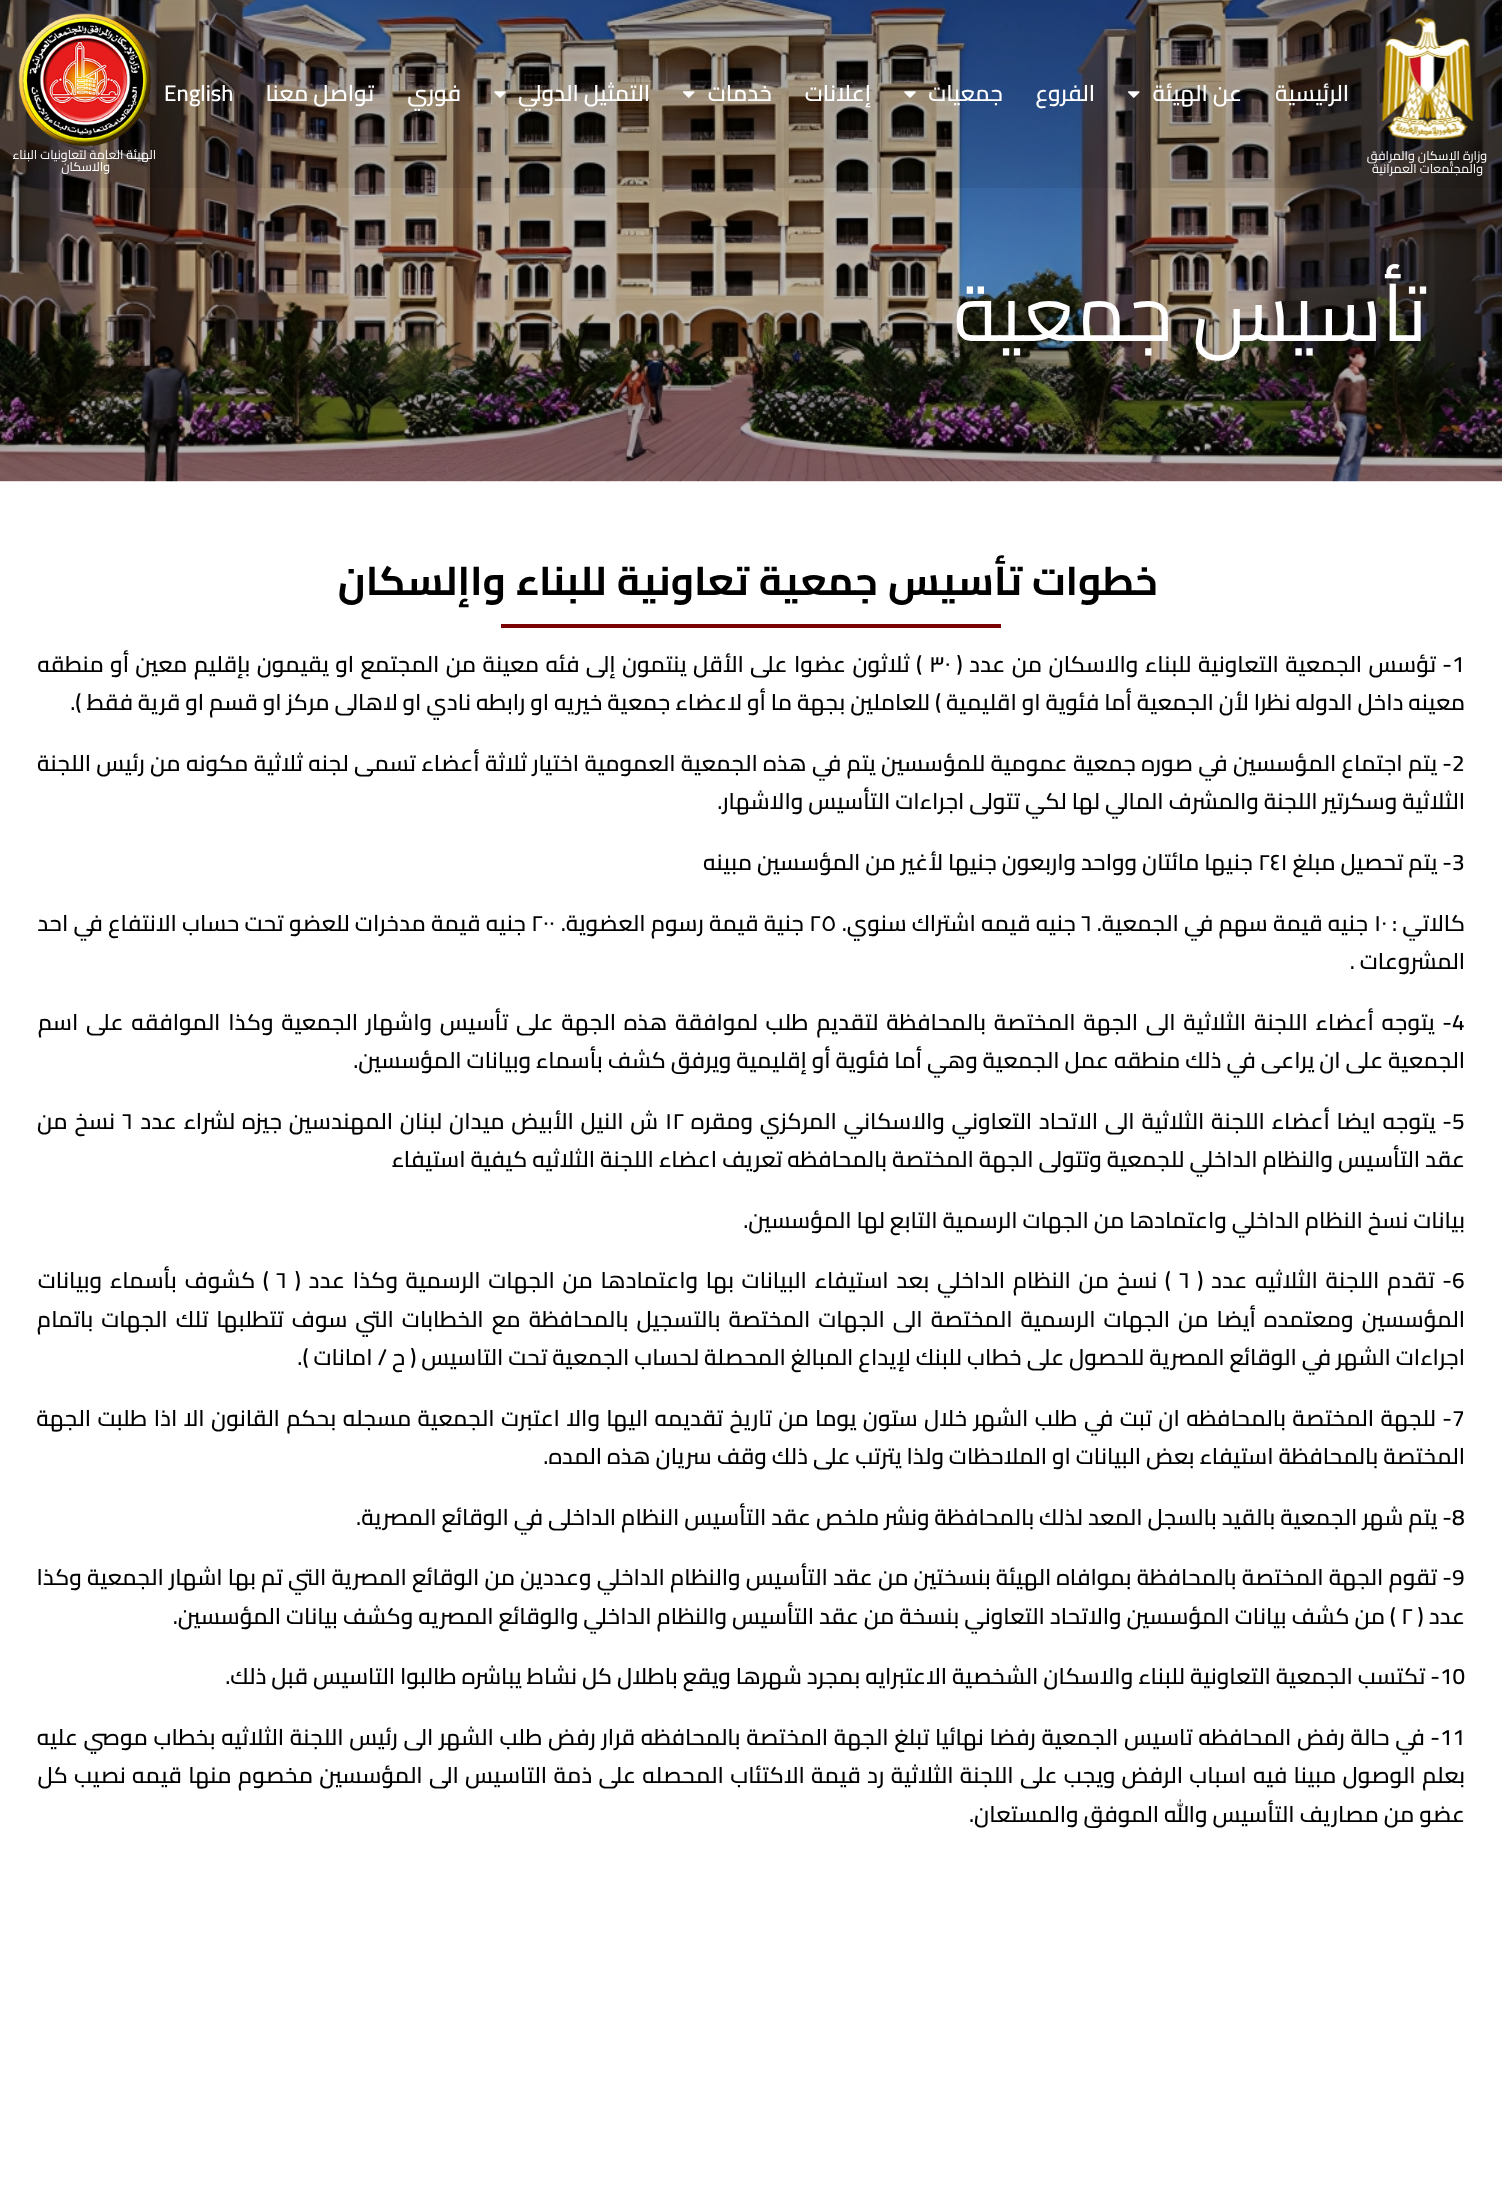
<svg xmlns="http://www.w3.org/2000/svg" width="1502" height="2190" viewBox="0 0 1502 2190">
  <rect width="100%" height="100%" fill="#fff"/>
  <image x="0" y="0" width="1502" height="482" href="img/7.png"/>
  <path d="M0 0h1502v188H0z" fill="#00000014"/>
  <image x="1128" y="91" width="12" height="7" href="img/1.png"/>
  <image x="904" y="91" width="12" height="7" href="img/2.png"/>
  <image x="683" y="91" width="12" height="7" href="img/3.png"/>
  <image x="494" y="91" width="12" height="7" href="img/4.png"/>
  <image x="1381" y="17" width="93" height="123" href="img/5.png"/>
  <image x="18" y="13" width="134" height="134" href="img/6.png"/>
  <path d="M501 624h500v4H501z" fill="#790403"/>
  <g font-family="Cairo" font-size="22.5" font-weight="600" direction="rtl" fill="#fff">
    <text x="1349" y="101">الرئيسية</text>
    <text x="1242" y="101">عن الهيئة</text>
    <text x="1095" y="101">الفروع</text>
    <text x="1003" y="101">جمعيات</text>
    <text x="871" y="101">إعلانات</text>
    <text x="772" y="101">خدمات</text>
    <text x="650" y="101">التمثيل الدولي</text>
    <text x="461" y="101">فوري</text>
    <text x="374" y="101">تواصل معنا</text>
  </g>
  <text x="164" y="101" font-family="Cairo" font-size="22.5" font-weight="600" fill="#fff">English</text>
  <g font-family="Cairo" font-size="12.5" direction="rtl" fill="#fff">
    <text x="1487" y="160">وزارة الإسكان والمرافق</text>
    <text x="1483" y="173">والمجتمعات العمرانية</text>
    <text x="156" y="159">الهيئة العامة لتعاونيات البناء</text>
    <text x="110" y="171">والاسكان</text>
  </g>
  <text x="1427" y="341" font-family="Cairo" font-size="80" direction="rtl" fill="#fff">تأسيس جمعية</text>
  <text x="1158" y="595" font-family="Cairo" font-size="40" font-weight="bold" direction="rtl" fill="#000">خطوات تأسيس جمعية تعاونية للبناء واإلسكان</text>
  <text x="1452" y="672" font-family="Cairo" font-size="22.5" font-weight="600" fill="#000">1</text>
  <text x="1452" y="672" word-spacing="1.4" font-family="Cairo" font-size="22.5" font-weight="600" direction="rtl" fill="#000">- تؤسس الجمعية التعاونية للبناء والاسكان من عدد (</text>
  <text x="929" y="672" font-family="Cairo" font-size="22.5" font-weight="600" fill="#000">۳۰</text>
  <g font-family="Cairo" font-size="22.5" font-weight="600" direction="rtl" fill="#000">
    <text x="922" y="672" word-spacing="1.4">) ثلاثون عضوا على الأقل ينتمون إلى فئه معينة من المجتمع او يقيمون بإقليم معين أو منطقه</text>
    <text x="1465" y="710">معينه داخل الدوله نظرا لأن الجمعية أما فئوية او اقليمية ) للعاملين بجهة ما أو لاعضاء جمعية خيريه او رابطه نادي او لاهالى مرکز او قسم او قرية فقط ).</text>
  </g>
  <text x="1452" y="771" font-family="Cairo" font-size="22.5" font-weight="600" fill="#000">2</text>
  <g font-family="Cairo" font-size="22.5" font-weight="600" direction="rtl" fill="#000">
    <text x="1452" y="771" word-spacing="0.4">- يتم اجتماع المؤسسين في صوره جمعية عمومية للمؤسسين يتم في هذه الجمعية العمومية اختيار ثلاثة أعضاء تسمى لجنه ثلاثية مكونه من رئيس اللجنة</text>
    <text x="1465" y="809">الثلاثية وسكرتير اللجنة والمشرف المالي لها لكي تتولى اجراءات التأسيس والاشهار.</text>
  </g>
  <text x="1452" y="870" font-family="Cairo" font-size="22.5" font-weight="600" fill="#000">3</text>
  <text x="1452" y="870" font-family="Cairo" font-size="22.5" font-weight="600" direction="rtl" fill="#000">- يتم تحصيل مبلغ</text>
  <text x="1258" y="870" font-family="Cairo" font-size="22.5" font-weight="600" fill="#000">٢٤١</text>
  <g font-family="Cairo" font-size="22.5" font-weight="600" direction="rtl" fill="#000">
    <text x="1253" y="870">جنيها مائتان وواحد واربعون جنيها لأغير من المؤسسين مبينه</text>
    <text x="1465" y="931" word-spacing="0.25">كالاتي :</text>
  </g>
  <text x="1374" y="931" font-family="Cairo" font-size="22.5" font-weight="600" fill="#000">۱۰</text>
  <text x="1368" y="931" word-spacing="0.25" font-family="Cairo" font-size="22.5" font-weight="600" direction="rtl" fill="#000">جنيه قيمة سهم في الجمعية.</text>
  <text x="1081" y="931" font-family="Cairo" font-size="22.5" font-weight="600" fill="#000">٦</text>
  <text x="1076" y="931" word-spacing="0.25" font-family="Cairo" font-size="22.5" font-weight="600" direction="rtl" fill="#000">جنيه قيمه اشتراك سنوي.</text>
  <text x="809" y="931" font-family="Cairo" font-size="22.5" font-weight="600" fill="#000">٢٥</text>
  <text x="804" y="931" word-spacing="0.25" font-family="Cairo" font-size="22.5" font-weight="600" direction="rtl" fill="#000">جنية قيمة رسوم العضوية.</text>
  <text x="531" y="931" font-family="Cairo" font-size="22.5" font-weight="600" fill="#000">۲۰۰</text>
  <g font-family="Cairo" font-size="22.5" font-weight="600" direction="rtl" fill="#000">
    <text x="526" y="931" word-spacing="0.25">جنيه قيمة مدخرات للعضو تحت حساب الانتفاع في احد</text>
    <text x="1465" y="969">المشروعات .</text>
  </g>
  <text x="1452" y="1030" font-family="Cairo" font-size="22.5" font-weight="600" fill="#000">4</text>
  <g font-family="Cairo" font-size="22.5" font-weight="600" direction="rtl" fill="#000">
    <text x="1452" y="1030" word-spacing="2.8">- يتوجه أعضاء اللجنة الثلاثية الى الجهة المختصة بالمحافظة لتقديم طلب لموافقة هذه الجهة على تأسيس واشهار الجمعية وكذا الموافقه على اسم</text>
    <text x="1465" y="1068">الجمعية على ان يراعى في ذلك منطقه عمل الجمعية وهي أما فئوية أو إقليمية ويرفق كشف بأسماء وبيانات المؤسسين.</text>
  </g>
  <text x="1452" y="1129" font-family="Cairo" font-size="22.5" font-weight="600" fill="#000">5</text>
  <text x="1452" y="1129" word-spacing="1.8" font-family="Cairo" font-size="22.5" font-weight="600" direction="rtl" fill="#000">- يتوجه ايضا أعضاء اللجنة الثلاثية الى الاتحاد التعاوني والاسكاني المركزي ومقره</text>
  <text x="665" y="1129" font-family="Cairo" font-size="22.5" font-weight="600" fill="#000">۱۲</text>
  <text x="658" y="1129" word-spacing="1.8" font-family="Cairo" font-size="22.5" font-weight="600" direction="rtl" fill="#000">ش النيل الأبيض ميدان لبنان المهندسين جيزه لشراء عدد</text>
  <text x="122" y="1129" font-family="Cairo" font-size="22.5" font-weight="600" fill="#000">٦</text>
  <g font-family="Cairo" font-size="22.5" font-weight="600" direction="rtl" fill="#000">
    <text x="115" y="1129" word-spacing="2">نسخ من</text>
    <text x="1465" y="1167">عقد التأسيس والنظام الداخلي للجمعية وتتولى الجهة المختصة بالمحافظه تعريف اعضاء اللجنة الثلاثيه كيفية استيفاء</text>
    <text x="1465" y="1228">بيانات نسخ النظام الداخلي واعتمادها من الجهات الرسمية التابع لها المؤسسين.</text>
  </g>
  <text x="1452" y="1288" font-family="Cairo" font-size="22.5" font-weight="600" fill="#000">6</text>
  <text x="1452" y="1288" word-spacing="2.75" font-family="Cairo" font-size="22.5" font-weight="600" direction="rtl" fill="#000">- تقدم اللجنة الثلاثيه عدد (</text>
  <text x="1179" y="1288" font-family="Cairo" font-size="22.5" font-weight="600" fill="#000">٦</text>
  <text x="1171" y="1288" word-spacing="2.75" font-family="Cairo" font-size="22.5" font-weight="600" direction="rtl" fill="#000">) نسخ من النظام الداخلي بعد استيفاء البيانات بها واعتمادها من الجهات الرسمية وكذا عدد (</text>
  <text x="276" y="1288" font-family="Cairo" font-size="22.5" font-weight="600" fill="#000">٦</text>
  <g font-family="Cairo" font-size="22.5" font-weight="600" direction="rtl" fill="#000">
    <text x="269" y="1288" word-spacing="2.75">) كشوف بأسماء وبيانات</text>
    <text x="1465" y="1327" word-spacing="3.1">المؤسسين ومعتمده أيضا من الجهات الرسمية المختصة الى الجهات المختصة بالتسجيل بالمحافظة مع الخطابات التي سوف تتطلبها تلك الجهات باتمام</text>
    <text x="1465" y="1365">اجراءات الشهر في الوقائع المصرية للحصول على خطاب للبنك لإيداع المبالغ المحصلة لحساب الجمعية تحت التاسيس ( ح / امانات ).</text>
  </g>
  <text x="1452" y="1426" font-family="Cairo" font-size="22.5" font-weight="600" fill="#000">7</text>
  <g font-family="Cairo" font-size="22.5" font-weight="600" direction="rtl" fill="#000">
    <text x="1452" y="1426" word-spacing="1.4">- للجهة المختصة بالمحافظه ان تبت في طلب الشهر خلال ستون يوما من تاريخ تقديمه اليها والا اعتبرت الجمعية مسجله بحكم القانون الا اذا طلبت الجهة</text>
    <text x="1465" y="1464">المختصة بالمحافظة استيفاء بعض البيانات او الملاحظات ولذا يترتب على ذلك وقف سريان هذه المده.</text>
  </g>
  <text x="1452" y="1525" font-family="Cairo" font-size="22.5" font-weight="600" fill="#000">8</text>
  <text x="1452" y="1525" font-family="Cairo" font-size="22.5" font-weight="600" direction="rtl" fill="#000">- يتم شهر الجمعية بالقيد بالسجل المعد لذلك بالمحافظة ونشر ملخص عقد التأسيس النظام الداخلى في الوقائع المصرية.</text>
  <text x="1452" y="1585" font-family="Cairo" font-size="22.5" font-weight="600" fill="#000">9</text>
  <g font-family="Cairo" font-size="22.5" font-weight="600" direction="rtl" fill="#000">
    <text x="1452" y="1585" word-spacing="0.2">- تقوم الجهة المختصة بالمحافظة بموافاه الهيئة بنسختين من عقد التأسيس والنظام الداخلي وعددين من الوقائع المصرية التي تم بها اشهار الجمعية وكذا</text>
    <text x="1465" y="1624">عدد (</text>
  </g>
  <text x="1401" y="1624" font-family="Cairo" font-size="22.5" font-weight="600" fill="#000">٢</text>
  <text x="1396" y="1624" font-family="Cairo" font-size="22.5" font-weight="600" direction="rtl" fill="#000">) من كشف بيانات المؤسسين والاتحاد التعاوني بنسخة من عقد التأسيس والنظام الداخلي والوقائع المصريه وكشف بيانات المؤسسين.</text>
  <text x="1440" y="1684" font-family="Cairo" font-size="22.5" font-weight="600" fill="#000">10</text>
  <text x="1440" y="1684" font-family="Cairo" font-size="22.5" font-weight="600" direction="rtl" fill="#000">- تكتسب الجمعية التعاونية للبناء والاسكان الشخصية الاعتبرايه بمجرد شهرها ويقع باطلال كل نشاط يباشره طالبوا التاسيس قبل ذلك.</text>
  <text x="1440" y="1745" font-family="Cairo" font-size="22.5" font-weight="600" fill="#000">11</text>
  <g font-family="Cairo" font-size="22.5" font-weight="600" direction="rtl" fill="#000">
    <text x="1440" y="1745" word-spacing="0.75">- في حالة رفض المحافظه تاسيس الجمعية رفضا نهائيا تبلغ الجهة المختصة بالمحافظه قرار رفض طلب الشهر الى رئيس اللجنة الثلاثيه بخطاب موصي عليه</text>
    <text x="1465" y="1783" word-spacing="1.35">بعلم الوصول مبينا فيه اسباب الرفض ويجب على اللجنة الثلاثية رد قيمة الاكتئاب المحصله على ذمة التاسيس الى المؤسسين مخصوم منها قيمه نصيب كل</text>
    <text x="1465" y="1822">عضو من مصاريف التأسيس والله الموفق والمستعان.</text>
  </g>
</svg>
